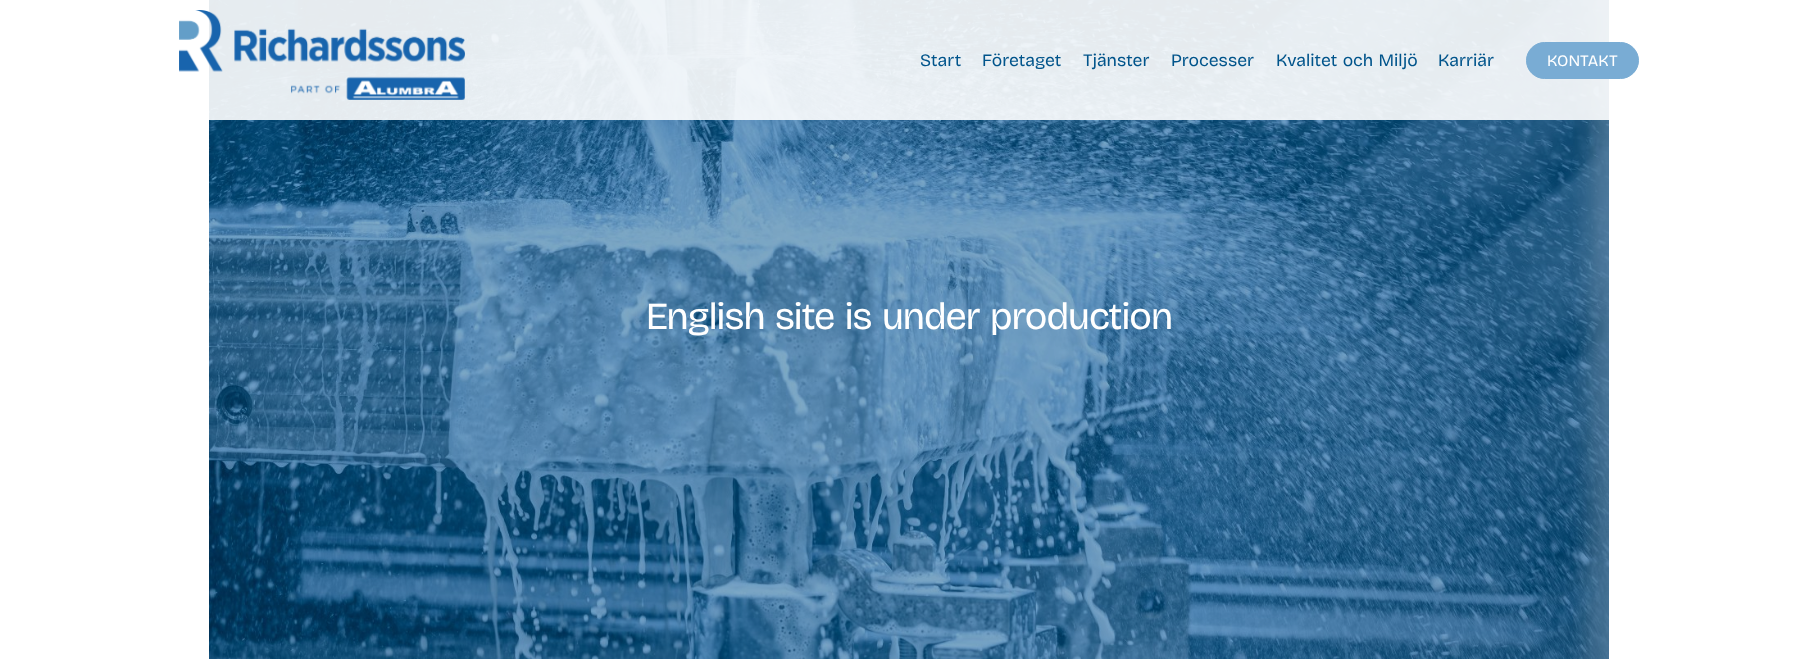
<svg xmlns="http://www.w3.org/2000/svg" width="1817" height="659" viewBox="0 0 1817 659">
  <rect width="100%" height="100%" fill="#fff"/>
  <image x="209" y="0" width="1400" height="659" href="img/2.png"/>
  <path d="M209 0h1400v120H209z" fill="#ffffffe6"/>
  <image x="179" y="10" width="286" height="90" href="img/1.png"/>
  <rect x="1526.5" y="42.5" width="112" height="36" rx="18" fill="#79acd4" stroke="#79acd4"/>
  <g font-family="'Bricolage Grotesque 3'" font-size="17.5" fill="#00548b">
    <text x="920" y="66">Start</text>
    <text x="982" y="66">Företaget</text>
    <text x="1083" y="66">Tjänster</text>
    <text x="1171" y="66">Processer</text>
    <text x="1276" y="66" word-spacing="1">Kvalitet och Miljö</text>
    <text x="1438" y="66">Karriär</text>
  </g>
  <text x="1547" y="66" font-family="'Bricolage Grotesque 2'" font-size="16" fill="#fff">KONTAKT</text>
  <text x="646" y="329" word-spacing="2" font-family="Bricolage Grotesque" font-size="38.4" letter-spacing="-0.95" fill="#fff">English site is under production</text>
</svg>
